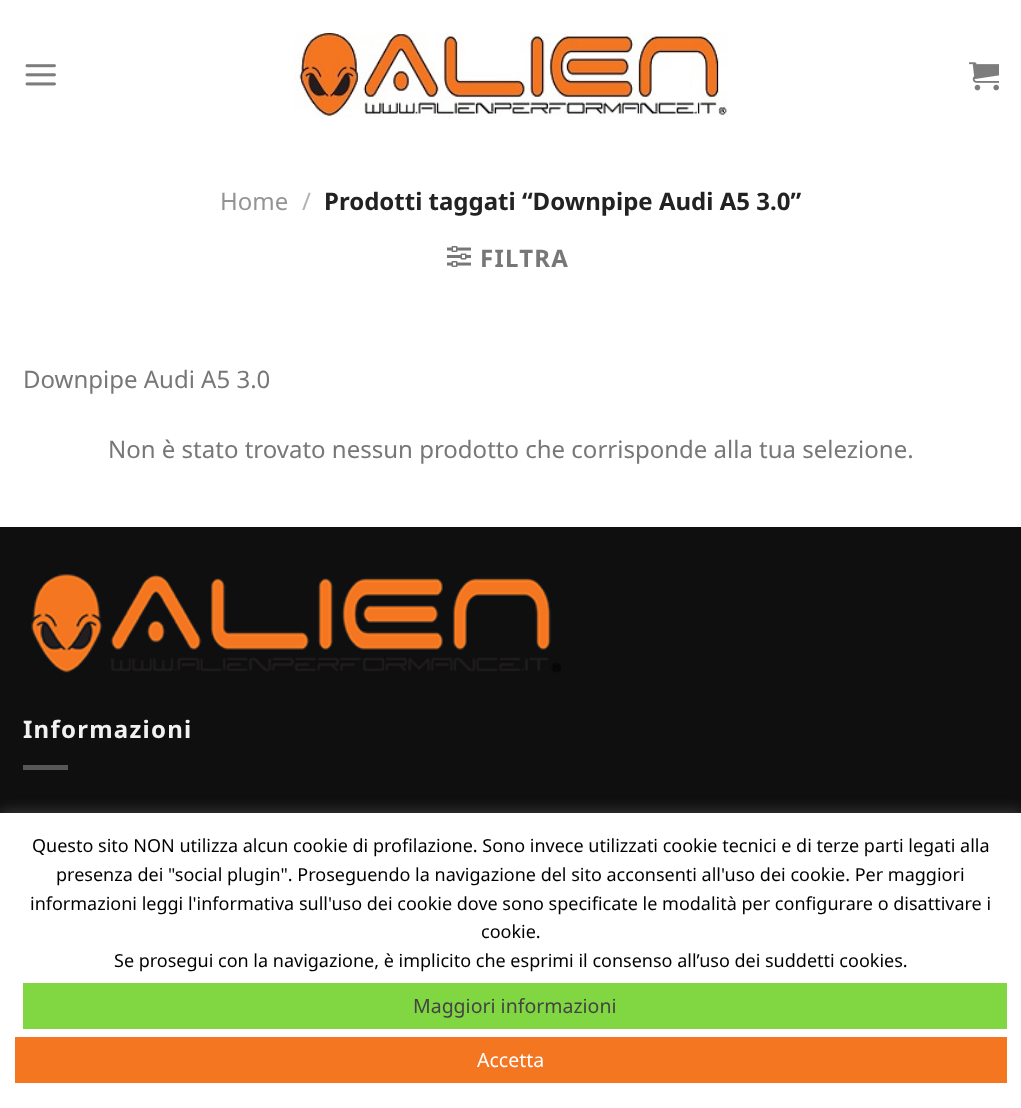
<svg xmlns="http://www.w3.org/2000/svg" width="1021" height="1108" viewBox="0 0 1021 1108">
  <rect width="100%" height="100%" fill="#fff"/>
  <image x="25" y="64" width="31" height="22" href="img/1.png"/>
  <image x="294" y="33" width="434" height="84" href="img/2.png"/>
  <image x="969" y="62" width="30" height="29" href="img/3.png"/>
  <image x="447" y="246" width="24" height="21" href="img/4.png"/>
  <path d="M0 527h1021v286H0z" fill="#0f0f0f"/>
  <image x="30" y="573" width="531" height="101" href="img/5.png"/>
  <path d="M23 765h45v5H23z" fill="#575757"/>
  <path d="M0 812h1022v295H0z" fill="#acabab4d" filter="blur(7.5px)"/>
  <path d="M0 813h1021v295H0z" fill="#fff"/>
  <path d="M23 983h984v46H23z" fill="#81d742"/>
  <path d="M15 1037h992v46H15z" fill="#f47620"/>
  <text x="220" y="210" font-family="Noto Sans" font-size="24" fill="#949494">Home</text>
  <text x="302" y="210" font-family="Noto Sans" font-size="24" fill="#b2b2b2">/</text>
  <text x="324" y="210" font-family="Noto Sans" font-size="24" font-weight="bold" fill="#222">Prodotti taggati “Downpipe Audi A5 3.0”</text>
  <text x="480" y="267" font-family="Noto Sans" font-size="24" font-weight="bold" letter-spacing="1.25" fill="#777">FILTRA</text>
  <g font-family="Noto Sans" font-size="24" fill="#777">
    <text x="23" y="388">Downpipe Audi A5 3.0</text>
    <text x="108" y="458">Non è stato trovato nessun prodotto che corrisponde alla tua selezione.</text>
  </g>
  <text x="23" y="738" font-family="Noto Sans" font-size="24" font-weight="bold" letter-spacing="1.25" fill="#f1f1f1">Informazioni</text>
  <g font-family="Noto Sans" font-size="18" fill="#000">
    <text x="32" y="852">Questo sito NON utilizza alcun cookie di profilazione. Sono invece utilizzati cookie tecnici e di terze parti legati alla</text>
    <text x="56" y="881">presenza dei "social plugin". Proseguendo la navigazione del sito acconsenti all'uso dei cookie. Per maggiori</text>
    <text x="30" y="910">informazioni leggi l'informativa sull'uso dei cookie dove sono specificate le modalità per configurare o disattivare i</text>
    <text x="481" y="938">cookie.</text>
    <text x="114" y="967">Se prosegui con la navigazione, è implicito che esprimi il consenso all’uso dei suddetti cookies.</text>
  </g>
  <text x="413" y="1013" font-family="Noto Sans" font-size="19.5" fill="#444">Maggiori informazioni</text>
  <text x="477" y="1067" font-family="Noto Sans" font-size="19.5" fill="#fff">Accetta</text>
</svg>
